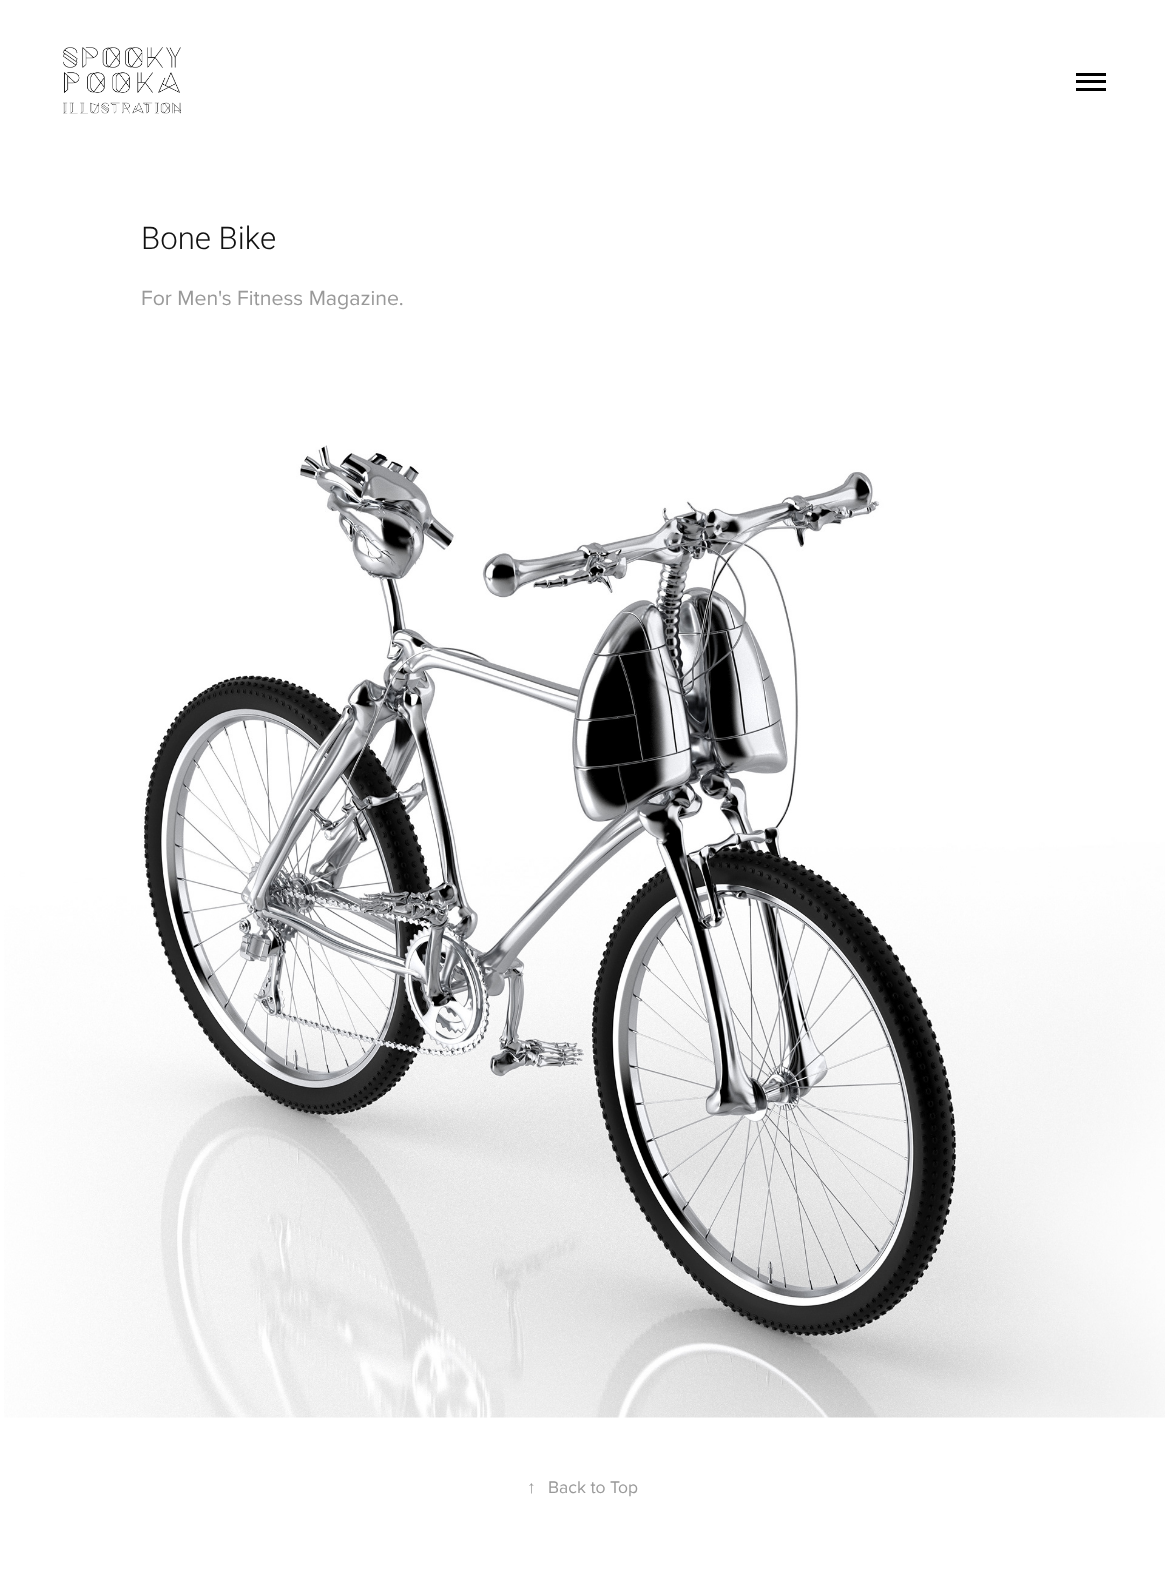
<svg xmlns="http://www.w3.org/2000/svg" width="1165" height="1579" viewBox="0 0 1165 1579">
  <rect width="100%" height="100%" fill="#fff"/>
  <image x="63" y="47" width="118" height="67" href="img/1.png"/>
  <path d="M1076 73h30v3H1076z" fill="#000"/>
  <path d="M1076 80h30v3H1076z" fill="#000"/>
  <path d="M1076 88h30v3H1076z" fill="#000"/>
  <image x="4" y="445" width="1161" height="973" href="img/2.png"/>
  <text x="141" y="249" font-family="Roboto" font-size="31.25" font-weight="300" fill="#111">Bone Bike</text>
  <text x="141" y="305" font-family="Proxima Nova" font-size="21.25" fill="#999">For Men's Fitness Magazine.</text>
  <text x="527" y="1493" font-family="Liberation Serif" font-size="17.5" fill="#999">↑</text>
  <text x="548" y="1493" font-family="Proxima Nova" font-size="17.5" fill="#999">Back to Top</text>
</svg>
